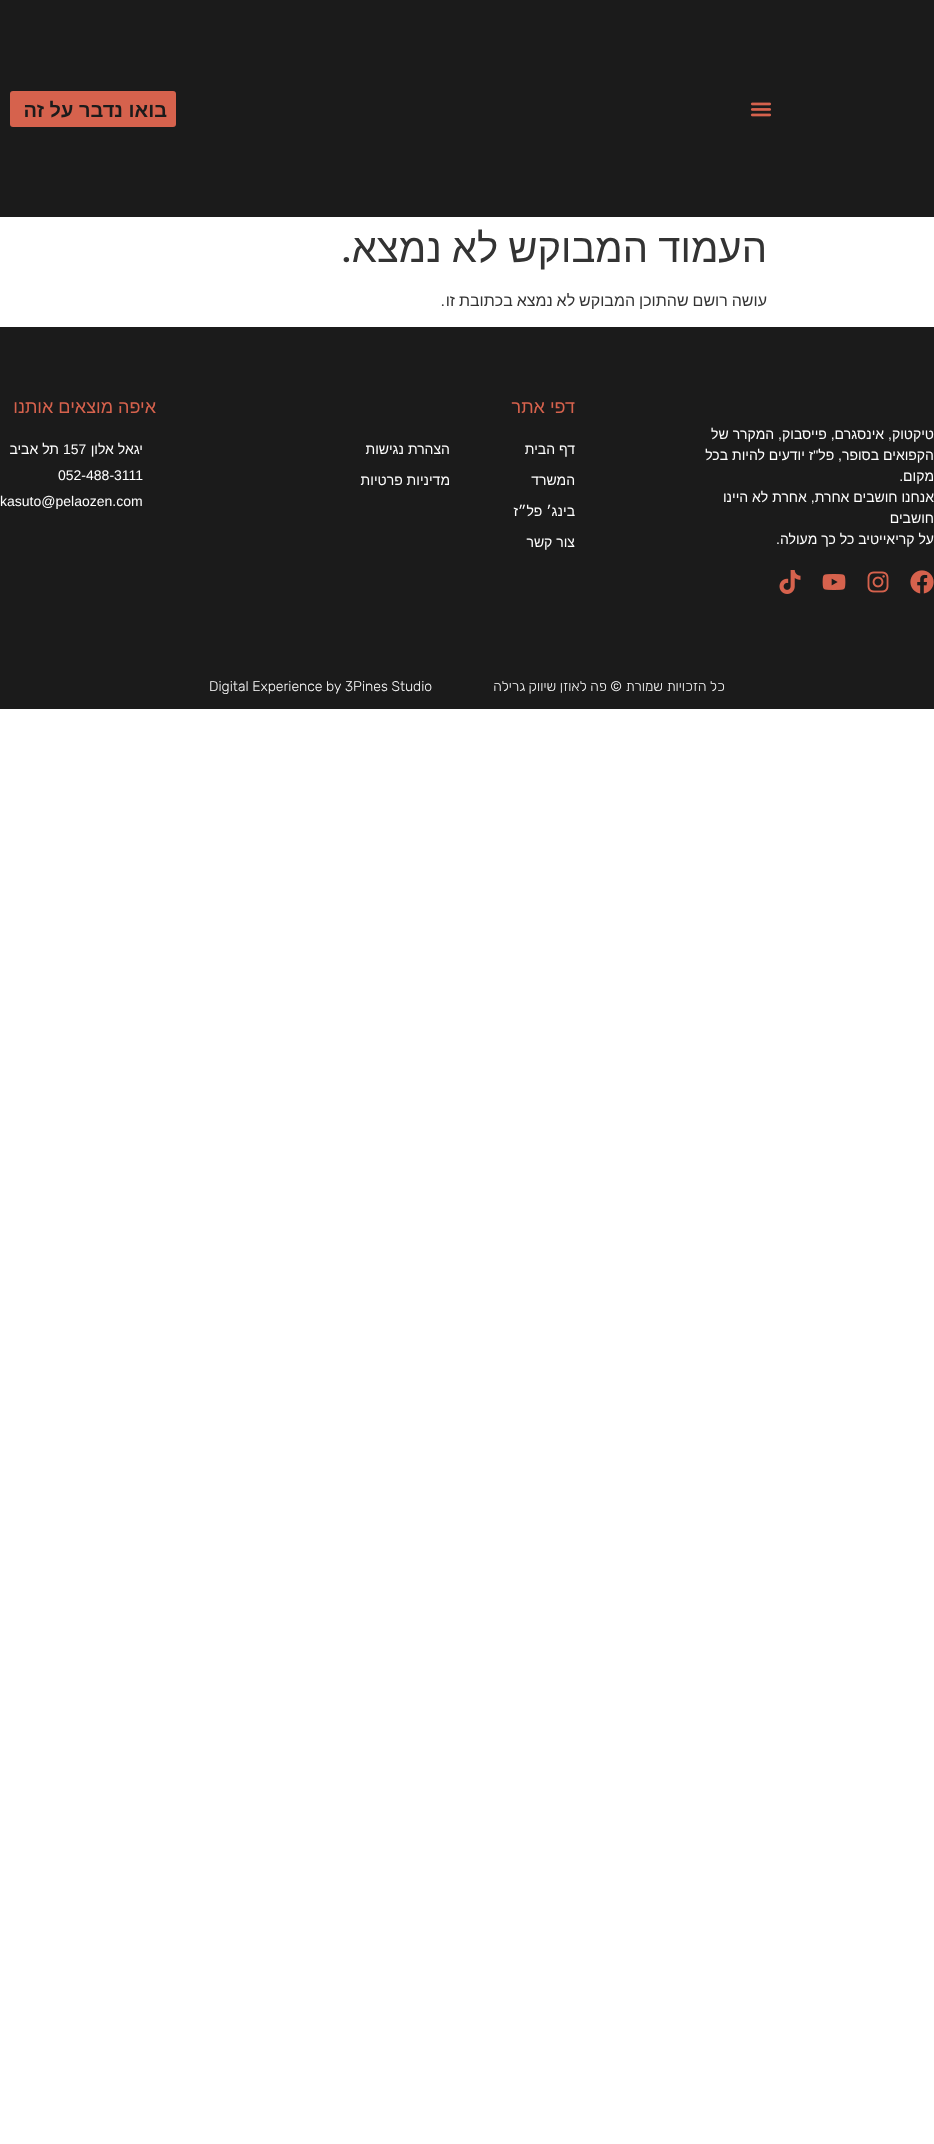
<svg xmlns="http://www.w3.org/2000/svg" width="934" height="2144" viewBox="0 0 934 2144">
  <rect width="100%" height="100%" fill="#fff"/>
  <path d="M0 0h934v217H0z" fill="#1b1b1b"/>
  <image x="750" y="102" width="22" height="15" href="img/1.png"/>
  <rect x="10" y="91" width="166" height="36" rx="3" fill="#d6624d"/>
  <path d="M0 327h934v382H0z" fill="#1b1b1b"/>
  <image x="910" y="570" width="24" height="24" href="img/2.png"/>
  <image x="867" y="571" width="22" height="22" href="img/3.png"/>
  <image x="822" y="574" width="24" height="16" href="img/4.png"/>
  <image x="779" y="570" width="22" height="24" href="img/5.png"/>
  <text x="167" y="117" font-family="Liberation Sans" font-size="20" font-weight="bold" direction="rtl" fill="#1b1b1b">בואו נדבר על זה</text>
  <text x="767" y="262" word-spacing="-1" font-family="Liberation Sans" font-size="40" direction="rtl" fill="#333">העמוד המבוקש לא נמצא</text>
  <text x="352" y="262" font-family="Roboto" font-size="40" font-weight="500" direction="rtl" fill="#333">.</text>
  <text x="767" y="306" word-spacing="-0.5" font-family="Liberation Sans" font-size="16" direction="rtl" fill="#333">עושה רושם שהתוכן המבוקש לא נמצא בכתובת זו</text>
  <text x="445" y="306" font-family="Roboto" font-size="16" direction="rtl" fill="#333">.</text>
  <g font-family="Liberation Sans" font-size="14" direction="rtl" fill="#fff">
    <text x="934" y="439">טיקטוק, אינסגרם, פייסבוק, המקרר של</text>
    <text x="934" y="460">הקפואים בסופר, פל"ז יודעים להיות בכל</text>
    <text x="934" y="481">מקום.</text>
    <text x="934" y="502">אנחנו חושבים אחרת, אחרת לא היינו</text>
    <text x="934" y="523">חושבים</text>
    <text x="934" y="544">על קריאייטיב כל כך מעולה.</text>
  </g>
  <text x="575" y="413" font-family="Liberation Sans" font-size="18" direction="rtl" fill="#d6624d">דפי אתר</text>
  <g font-family="Liberation Sans" font-size="14" direction="rtl" fill="#fff">
    <text x="575" y="454">דף הבית</text>
    <text x="575" y="485">המשרד</text>
    <text x="575" y="516">בינג׳ פל״ז</text>
    <text x="575" y="547">צור קשר</text>
    <text x="450" y="454">הצהרת נגישות</text>
    <text x="450" y="485">מדיניות פרטיות</text>
  </g>
  <text x="156" y="413" font-family="Liberation Sans" font-size="18" direction="rtl" fill="#d6624d">איפה מוצאים אותנו</text>
  <text x="143" y="454" font-family="Liberation Sans" font-size="14" direction="rtl" fill="#fff">יגאל אלון</text>
  <text x="63" y="454" font-family="Liberation Sans" font-size="14" fill="#fff">157</text>
  <text x="59" y="454" font-family="Liberation Sans" font-size="14" direction="rtl" fill="#fff">תל אביב</text>
  <g font-family="Liberation Sans" font-size="14" fill="#fff">
    <text x="58" y="480">052-488-3111</text>
    <text x="0" y="506">kasuto@pelaozen.com</text>
  </g>
  <text x="725" y="691" font-family="Rubik" font-size="14" font-weight="300" direction="rtl" fill="#fff">כל הזכויות שמורת © פה לאוזן שיווק גרילה</text>
  <text x="209" y="691" font-family="Rubik" font-size="14" font-weight="300" fill="#fff">Digital Experience by 3Pines Studio</text>
</svg>
